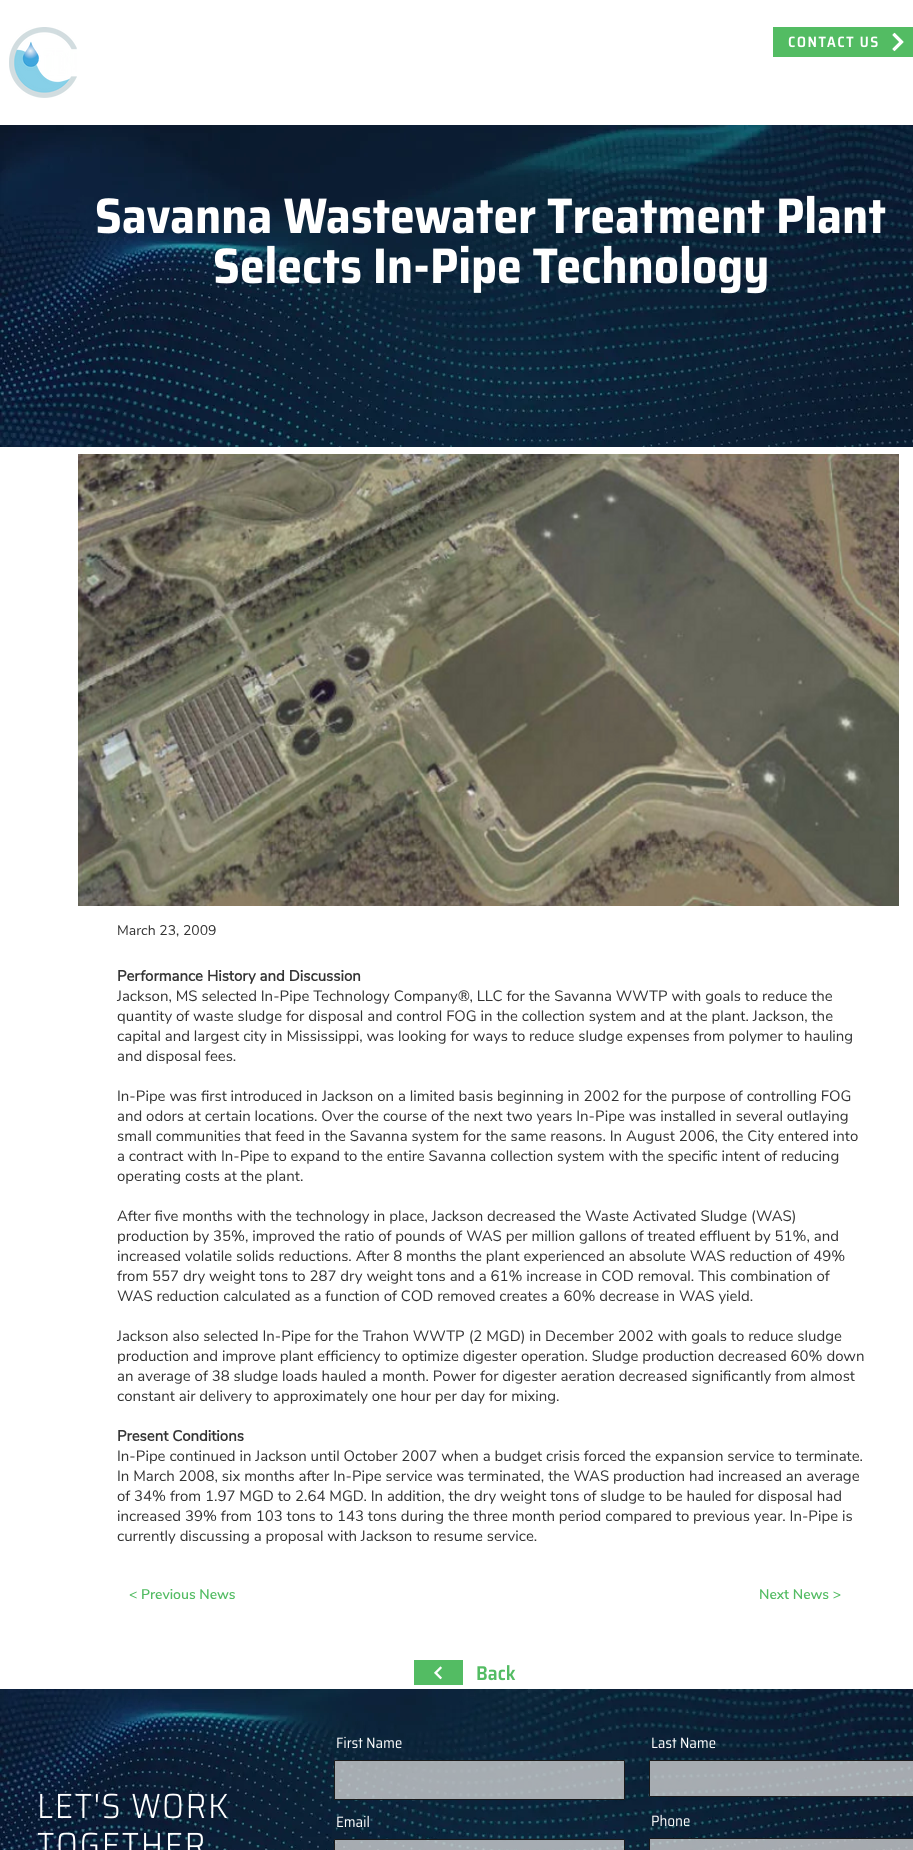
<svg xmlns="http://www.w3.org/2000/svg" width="913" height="1850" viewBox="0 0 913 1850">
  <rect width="100%" height="100%" fill="#fff"/>
  <image x="9" y="27" width="68" height="71" href="img/1.png"/>
  <path d="M773 27h140v30H773z" fill="#53bc63"/>
  <image x="788" y="36" width="90" height="12" href="img/2.png"/>
  <image x="892" y="32" width="12" height="20" href="img/3.png"/>
  <image x="0" y="125" width="913" height="322" href="img/4.png"/>
  <image x="96" y="195" width="790" height="39" href="img/5.png"/>
  <image x="214" y="245" width="553" height="49" href="img/6.png"/>
  <image x="78" y="454" width="821" height="452" href="img/7.png"/>
  <path d="M414 1660h49v25H414z" fill="#53bc63"/>
  <image x="434" y="1666" width="8" height="14" href="img/8.png"/>
  <image x="477" y="1665" width="39" height="16" href="img/9.png"/>
  <image x="0" y="1689" width="913" height="161" href="img/10.png"/>
  <image x="40" y="1793" width="188" height="26" href="img/11.png"/>
  <image x="38" y="1832" width="165" height="18" href="img/12.png"/>
  <image x="337" y="1736" width="65" height="13" href="img/13.png"/>
  <path d="M334.5 1760.5h290v39H334.5z" fill="#dbdbdbbf" stroke="#1a1a1a"/>
  <image x="652" y="1737" width="64" height="12" href="img/14.png"/>
  <path d="M649.5 1760.5h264v36H649.5z" fill="#dbdbdbbf" stroke="#1a1a1a"/>
  <image x="337" y="1815" width="32" height="13" href="img/15.png"/>
  <path d="M334.5 1839.5h290v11H334.5z" fill="#dbdbdbbf" stroke="#1a1a1a"/>
  <image x="652" y="1814" width="38" height="13" href="img/16.png"/>
  <path d="M649.5 1838.5h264v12H649.5z" fill="#dbdbdbbf" stroke="#1a1a1a"/>
  <text x="117" y="935" font-family="Nunito Sans" font-size="14" fill="#333">March 23, 2009</text>
  <text x="117" y="981" font-family="Nunito Sans" font-size="15" font-weight="bold" fill="#333">Performance History and Discussion</text>
  <g font-family="Nunito Sans" font-size="15" fill="#333">
    <text x="117" y="1001">Jackson, MS selected In-Pipe Technology Company®, LLC for the Savanna WWTP with goals to reduce the</text>
    <text x="117" y="1021">quantity of waste sludge for disposal and control FOG in the collection system and at the plant. Jackson, the</text>
    <text x="117" y="1041">capital and largest city in Mississippi, was looking for ways to reduce sludge expenses from polymer to hauling</text>
    <text x="117" y="1061">and disposal fees.</text>
    <text x="117" y="1101">In-Pipe was first introduced in Jackson on a limited basis beginning in 2002 for the purpose of controlling FOG</text>
    <text x="117" y="1121">and odors at certain locations. Over the course of the next two years In-Pipe was installed in several outlaying</text>
    <text x="117" y="1141">small communities that feed in the Savanna system for the same reasons. In August 2006, the City entered into</text>
    <text x="117" y="1161">a contract with In-Pipe to expand to the entire Savanna collection system with the specific intent of reducing</text>
    <text x="117" y="1181">operating costs at the plant.</text>
    <text x="117" y="1221">After five months with the technology in place, Jackson decreased the Waste Activated Sludge (WAS)</text>
    <text x="117" y="1241">production by 35%, improved the ratio of pounds of WAS per million gallons of treated effluent by 51%, and</text>
    <text x="117" y="1261">increased volatile solids reductions. After 8 months the plant experienced an absolute WAS reduction of 49%</text>
    <text x="117" y="1281">from 557 dry weight tons to 287 dry weight tons and a 61% increase in COD removal. This combination of</text>
    <text x="117" y="1301">WAS reduction calculated as a function of COD removed creates a 60% decrease in WAS yield.</text>
    <text x="117" y="1341">Jackson also selected In-Pipe for the Trahon WWTP (2 MGD) in December 2002 with goals to reduce sludge</text>
    <text x="117" y="1361">production and improve plant efficiency to optimize digester operation. Sludge production decreased 60% down</text>
    <text x="117" y="1381">an average of 38 sludge loads hauled a month. Power for digester aeration decreased significantly from almost</text>
    <text x="117" y="1401">constant air delivery to approximately one hour per day for mixing.</text>
  </g>
  <text x="117" y="1441" font-family="Nunito Sans" font-size="15" font-weight="bold" fill="#333">Present Conditions</text>
  <g font-family="Nunito Sans" font-size="15" fill="#333">
    <text x="117" y="1461">In-Pipe continued in Jackson until October 2007 when a budget crisis forced the expansion service to terminate.</text>
    <text x="117" y="1481">In March 2008, six months after In-Pipe service was terminated, the WAS production had increased an average</text>
    <text x="117" y="1501">of 34% from 1.97 MGD to 2.64 MGD. In addition, the dry weight tons of sludge to be hauled for disposal had</text>
    <text x="117" y="1521">increased 39% from 103 tons to 143 tons during the three month period compared to previous year. In-Pipe is</text>
    <text x="117" y="1541">currently discussing a proposal with Jackson to resume service.</text>
  </g>
  <g font-family="Nunito Sans" font-size="14" font-weight="600" fill="#53bc63">
    <text x="129" y="1599">&lt; Previous News</text>
    <text x="759" y="1599">Next News &gt;</text>
  </g>
</svg>
